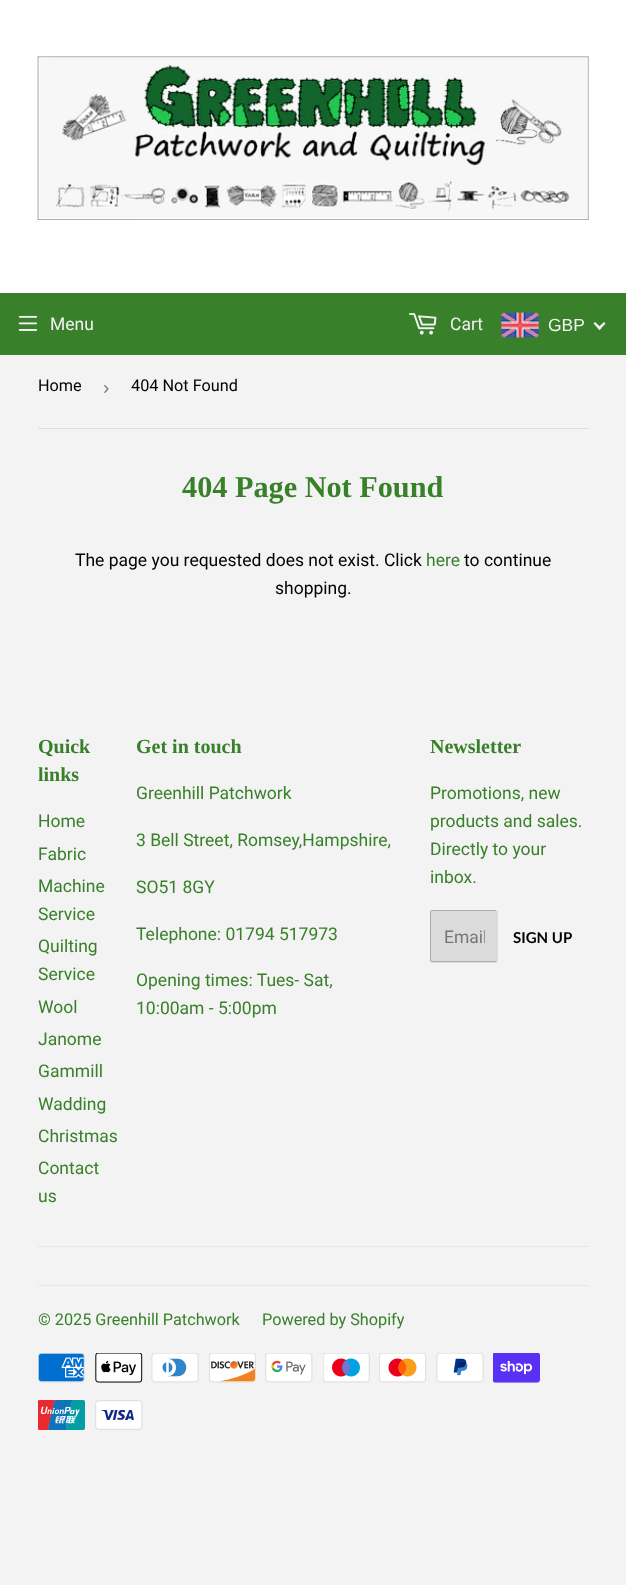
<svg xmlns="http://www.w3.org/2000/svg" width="626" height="1585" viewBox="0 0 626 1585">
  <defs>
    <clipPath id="clip1"><path d="M444 926h41v20H444z"/></clipPath>
  </defs>
  <rect width="100%" height="100%" fill="#f3f3f3"/>
  <path d="M0 0h626v293H0z" fill="#fff"/>
  <image x="37" y="56" width="552" height="164" href="img/1.png"/>
  <path d="M0 293h626v62H0z" fill="#388029"/>
  <image x="18" y="315" width="20" height="16" href="img/2.png"/>
  <image x="409" y="313" width="28" height="22" href="img/3.png"/>
  <image x="501" y="312" width="38" height="26" href="img/4.png"/>
  <path d="M604 322L605.5 323.5L599.5 330L597.5 328Z" fill="#f3f3f3"/>
  <path d="M595 322L601.5 328L599.5 330L593.5 323.5Z" fill="#f3f3f3"/>
  <path d="M38 428h551v1H38z" fill="#dedede"/>
  <rect x="430" y="910" width="68" height="53" rx="2.5" fill="#dbdbdb"/>
  <path d="M431 910h65v1H431z" fill="#ababab"/>
  <path d="M431 961h65v1H431z" fill="#ababab"/>
  <path d="M430 911h1v50H430z" fill="#ababab"/>
  <path d="M38 1246h551v1H38z" fill="#e6e6e6"/>
  <path d="M38 1285h551v1H38z" fill="#e6e6e6"/>
  <image x="38" y="1353" width="47" height="30" href="img/5.png"/>
  <image x="95" y="1353" width="48" height="30" href="img/6.png"/>
  <image x="151" y="1353" width="48" height="30" href="img/7.png"/>
  <image x="209" y="1353" width="47" height="30" href="img/8.png"/>
  <image x="265" y="1353" width="48" height="30" href="img/9.png"/>
  <image x="323" y="1353" width="47" height="30" href="img/10.png"/>
  <image x="379" y="1353" width="47" height="30" href="img/11.png"/>
  <image x="436" y="1353" width="48" height="30" href="img/12.png"/>
  <image x="493" y="1353" width="47" height="30" href="img/13.png"/>
  <image x="38" y="1400" width="47" height="30" href="img/14.png"/>
  <image x="95" y="1400" width="48" height="30" href="img/15.png"/>
  <g font-family="Roboto" font-size="17.5" fill="#f3f3f3">
    <text x="50" y="330">Menu</text>
    <text x="450" y="330">Cart</text>
  </g>
  <text x="548" y="331" font-family="Liberation Sans" font-size="17.5" fill="#f3f3f3">GBP</text>
  <text x="38" y="391" font-family="Roboto" font-size="16.25" fill="#000">Home</text>
  <text x="103" y="394" font-family="Liberation Sans" font-size="19" fill="#767676">›</text>
  <text x="131" y="391" font-family="Roboto" font-size="16.25" fill="#000">404 Not Found</text>
  <text x="182" y="497" font-family="Liberation Serif" font-size="30.25" font-weight="bold" fill="#388029">404 Page Not Found</text>
  <text x="75" y="566" font-family="Roboto" font-size="17.5" fill="#000">The page you requested does not exist. Click</text>
  <text x="426" y="566" font-family="Roboto" font-size="17.5" fill="#388029">here</text>
  <g font-family="Roboto" font-size="17.5" fill="#000">
    <text x="464" y="566">to continue</text>
    <text x="275" y="594">shopping.</text>
  </g>
  <g font-family="Liberation Serif" font-size="20" font-weight="bold" fill="#388029">
    <text x="38" y="753">Quick</text>
    <text x="38" y="781">links</text>
  </g>
  <g font-family="Roboto" font-size="17.5" fill="#388029">
    <text x="38" y="827">Home</text>
    <text x="38" y="860">Fabric</text>
    <text x="38" y="892">Machine</text>
    <text x="38" y="920">Service</text>
    <text x="38" y="952">Quilting</text>
    <text x="38" y="980">Service</text>
    <text x="38" y="1013">Wool</text>
    <text x="38" y="1045">Janome</text>
    <text x="38" y="1077">Gammill</text>
    <text x="38" y="1110">Wadding</text>
    <text x="38" y="1142">Christmas</text>
    <text x="38" y="1174">Contact</text>
    <text x="38" y="1202">us</text>
  </g>
  <text x="136" y="753" font-family="Liberation Serif" font-size="20" font-weight="bold" fill="#388029">Get in touch</text>
  <g font-family="Roboto" font-size="17.5" fill="#388029">
    <text x="136" y="799">Greenhill Patchwork</text>
    <text x="136" y="846">3 Bell Street, Romsey,Hampshire,</text>
    <text x="136" y="893">SO51 8GY</text>
    <text x="136" y="940">Telephone: 01794 517973</text>
    <text x="136" y="986">Opening times: Tues- Sat,</text>
    <text x="136" y="1014">10:00am - 5:00pm</text>
  </g>
  <text x="430" y="753" font-family="Liberation Serif" font-size="20" font-weight="bold" fill="#388029">Newsletter</text>
  <g font-family="Roboto" font-size="17.5" fill="#388029">
    <text x="430" y="799">Promotions, new</text>
    <text x="430" y="827">products and sales.</text>
    <text x="430" y="855">Directly to your</text>
    <text x="430" y="883">inbox.</text>
  </g>
  <g clip-path="url(#clip1)">
    <text x="444" y="943" font-family="Roboto" font-size="17.5" fill="#767676">Email</text>
  </g>
  <text x="513" y="943" font-family="Lato" font-size="15" font-weight="bold" fill="#000">SIGN UP</text>
  <g font-family="Roboto" font-size="16.25" fill="#388029">
    <text x="38" y="1325">© 2025 Greenhill Patchwork</text>
    <text x="262" y="1325">Powered by Shopify</text>
  </g>
</svg>
